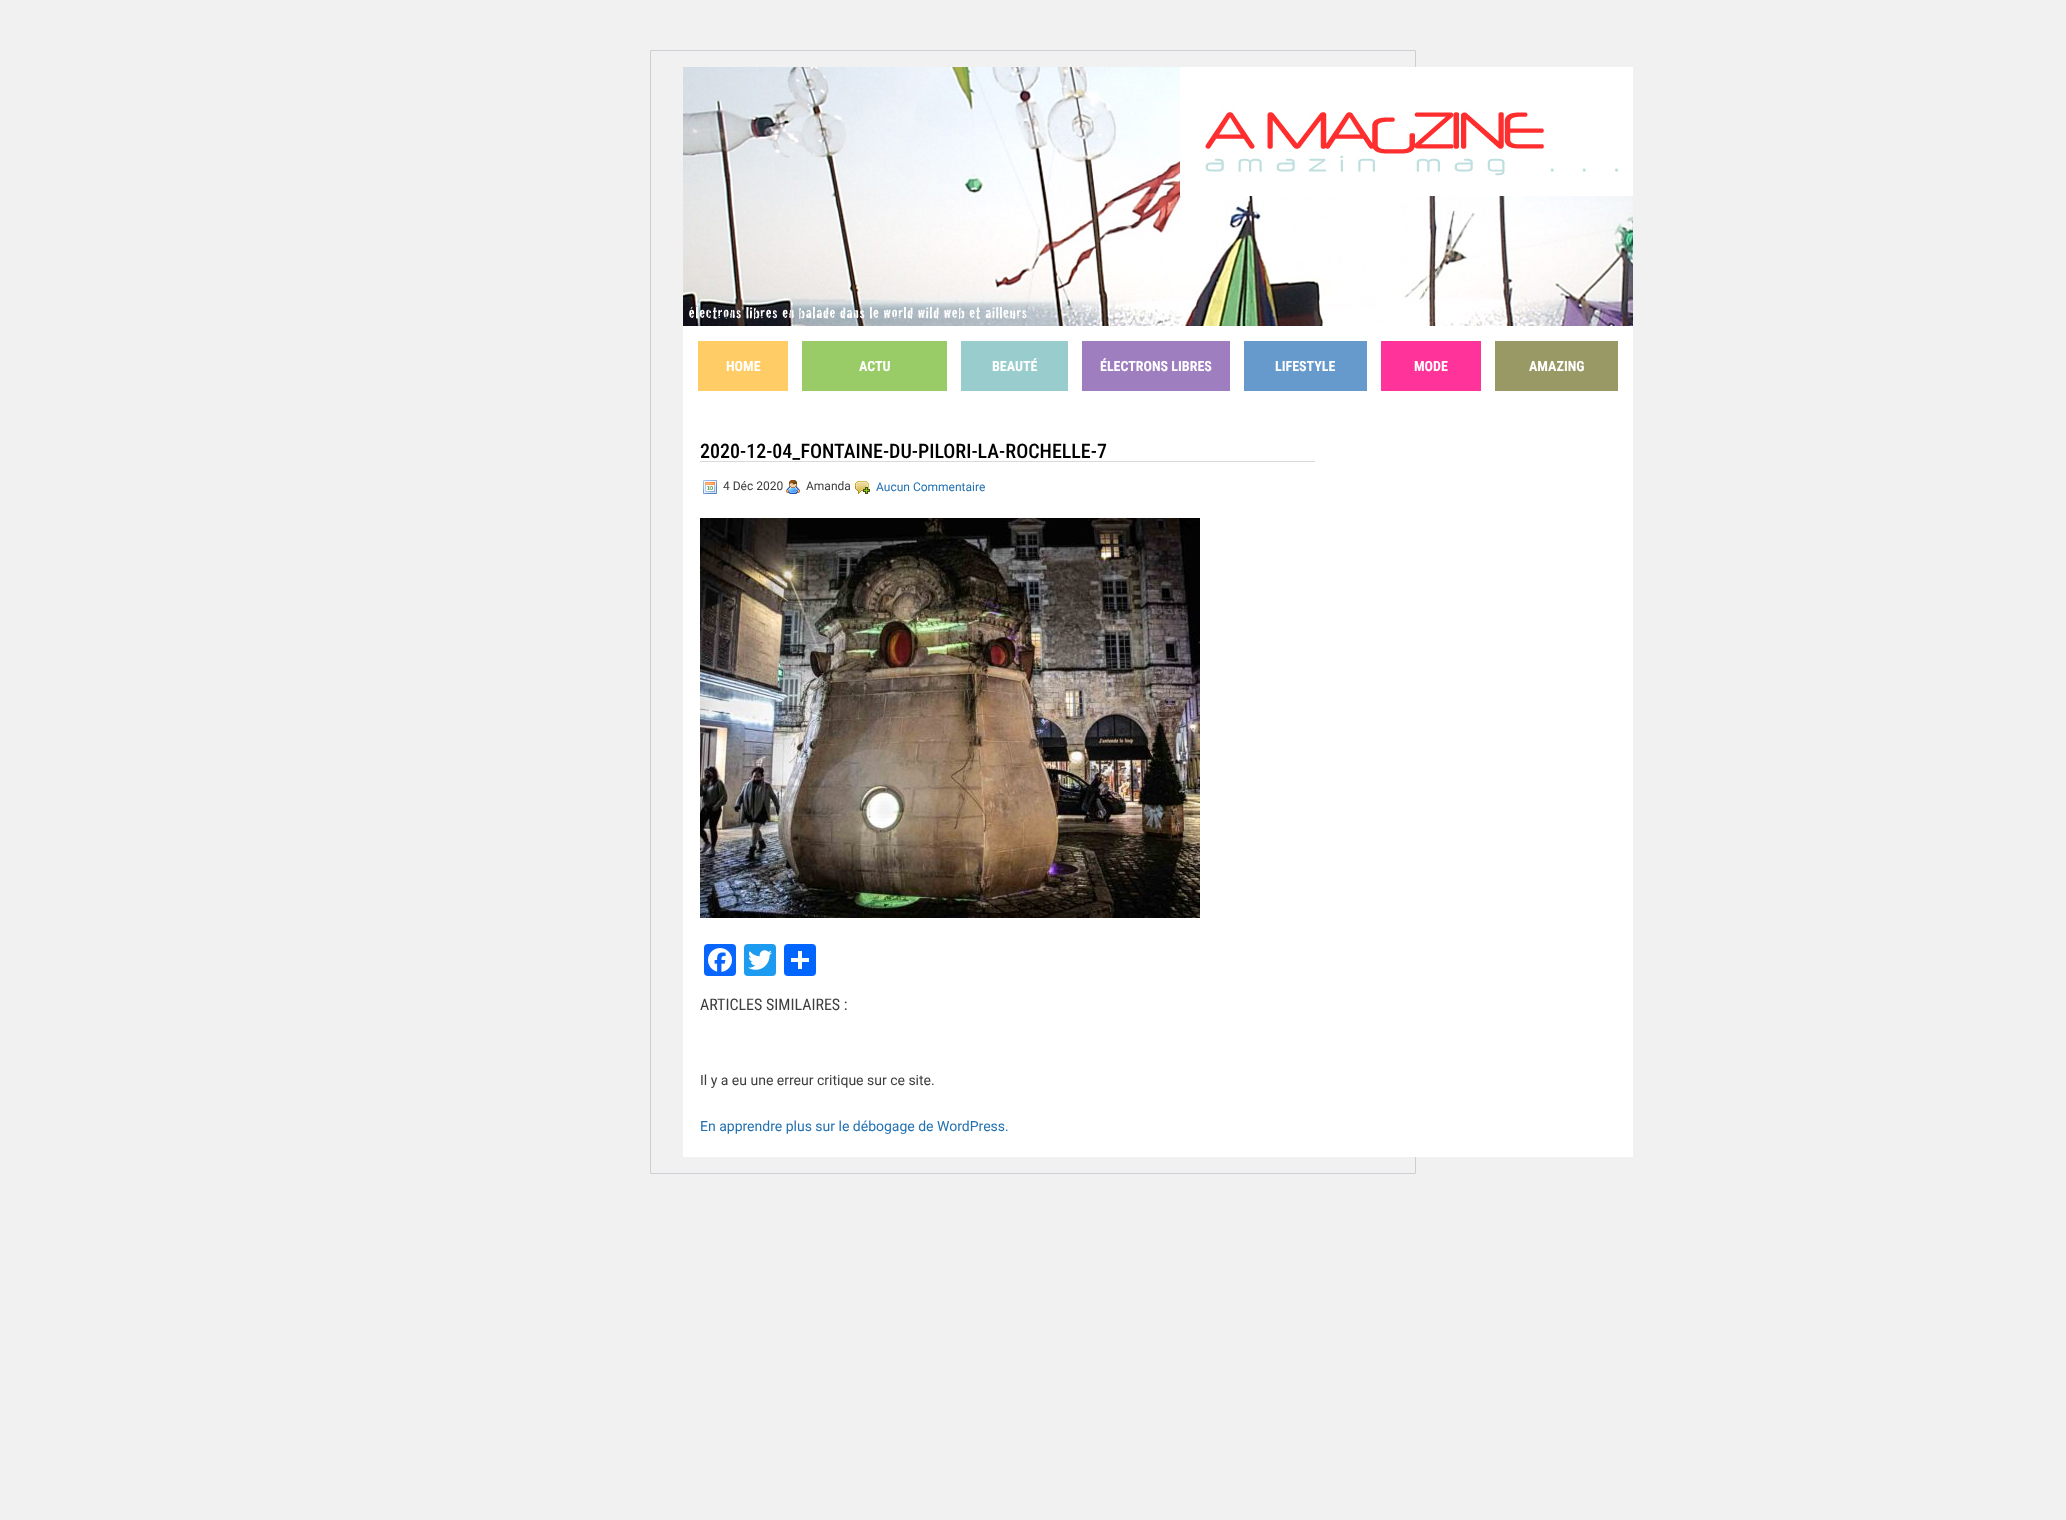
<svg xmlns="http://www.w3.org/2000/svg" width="2066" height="1520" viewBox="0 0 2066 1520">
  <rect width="100%" height="100%" fill="#f1f1f1"/>
  <path d="M650.5 50.5h765v1123H650.5z" fill="none" stroke="#ccd0d4"/>
  <path d="M683 326h950v831H683z" fill="#fff"/>
  <image x="683" y="67" width="950" height="259" href="img/1.png"/>
  <path d="M698 341h90v50H698z" fill="#fc6"/>
  <path d="M802 341h145v50H802z" fill="#9c6"/>
  <path d="M961 341h107v50H961z" fill="#9cc"/>
  <path d="M1082 341h148v50H1082z" fill="#9f7ec0"/>
  <path d="M1244 341h123v50H1244z" fill="#69c"/>
  <path d="M1381 341h100v50H1381z" fill="#f39"/>
  <path d="M1495 341h123v50H1495z" fill="#996"/>
  <path d="M700 461h615v1H700z" fill="#dadada"/>
  <image x="703" y="480" width="14" height="14" href="img/2.png"/>
  <image x="786" y="480" width="14" height="14" href="img/3.png"/>
  <image x="855" y="481" width="15" height="13" href="img/4.png"/>
  <image x="700" y="518" width="500" height="400" href="img/5.png"/>
  <rect x="704" y="944" width="32" height="32" rx="4" fill="#0866ff"/>
  <image x="708" y="948" width="24" height="24" href="img/6.png"/>
  <rect x="744" y="944" width="32" height="32" rx="4" fill="#1d9bf0"/>
  <image x="748" y="950" width="24" height="20" href="img/7.png"/>
  <rect x="784" y="944" width="32" height="32" rx="4" fill="#0166ff"/>
  <path d="M798 951h4v18H798z" fill="#fff"/>
  <path d="M791 958h18v4H791z" fill="#fff"/>
  <g font-family="Roboto Condensed" font-size="14" font-weight="bold" fill="#fff">
    <text x="726" y="371">HOME</text>
    <text x="859" y="371">ACTU</text>
    <text x="992" y="371">BEAUTÉ</text>
    <text x="1100" y="371">ÉLECTRONS LIBRES</text>
    <text x="1275" y="371">LIFESTYLE</text>
    <text x="1414" y="371">MODE</text>
    <text x="1529" y="371">AMAZING</text>
  </g>
  <text x="700" y="458" font-family="Roboto Condensed" font-size="20" font-weight="500" fill="#000">2020-12-04_FONTAINE-DU-PILORI-LA-ROCHELLE-7</text>
  <g font-family="Roboto" font-size="12" fill="#3e3c3c">
    <text x="723" y="490">4 Déc 2020</text>
    <text x="806" y="490">Amanda</text>
  </g>
  <text x="876" y="491" font-family="Roboto" font-size="12" fill="#2271b1">Aucun Commentaire</text>
  <text x="700" y="1010" font-family="Roboto Condensed" font-size="16" fill="#3e3c3c">ARTICLES SIMILAIRES :</text>
  <text x="700" y="1085" font-family="Roboto" font-size="14" fill="#3e3c3c">Il y a eu une erreur critique sur ce site.</text>
  <text x="700" y="1131" font-family="Roboto" font-size="14" fill="#2271b1">En apprendre plus sur le débogage de WordPress.</text>
</svg>
